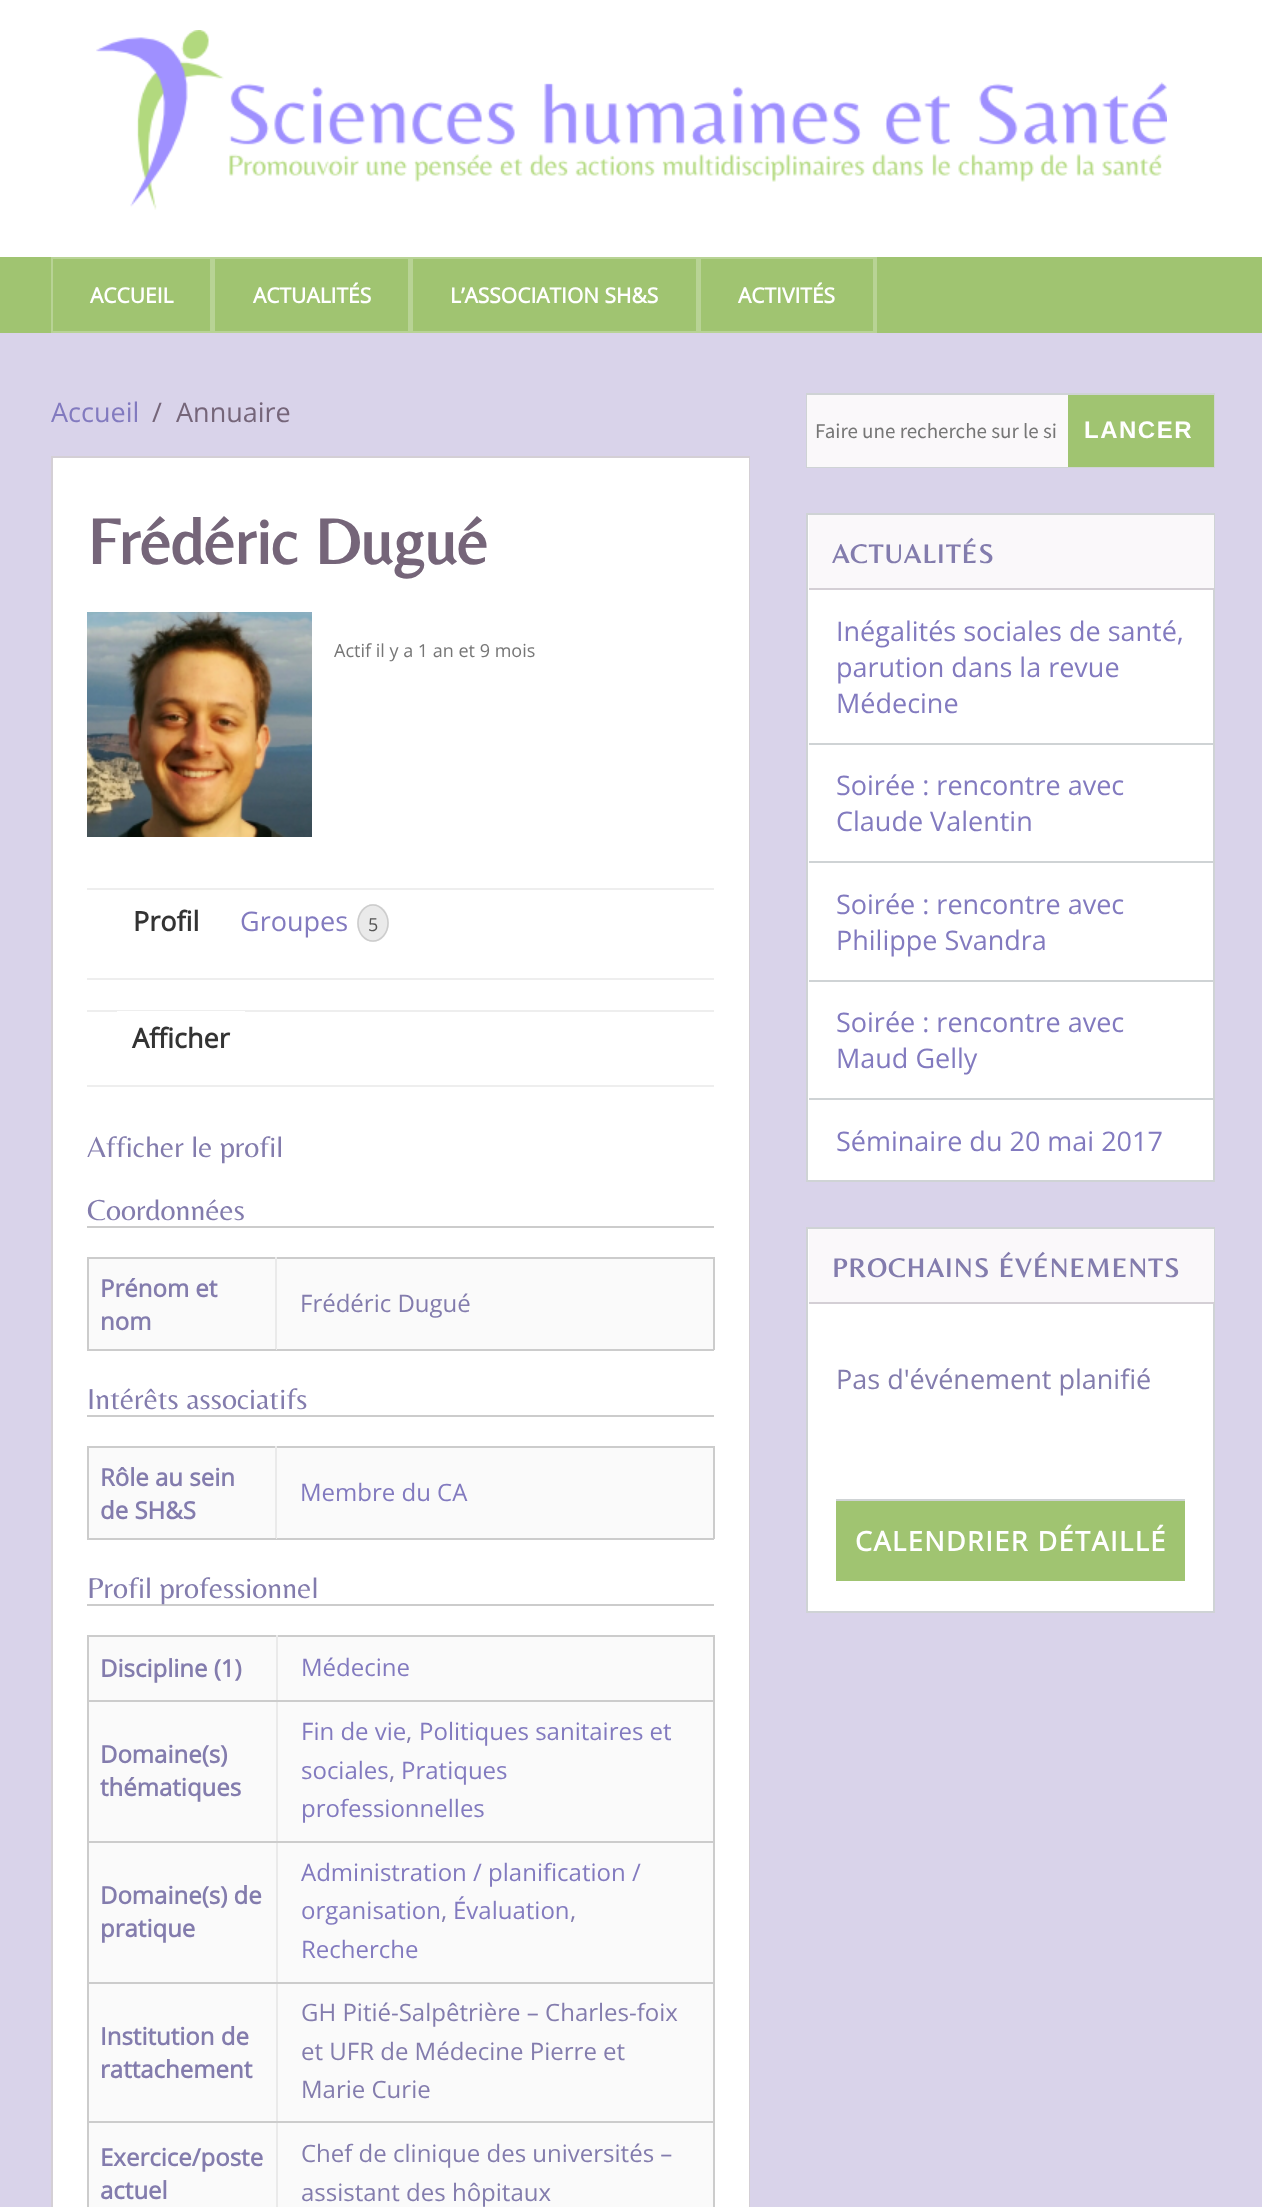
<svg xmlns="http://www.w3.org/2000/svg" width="1262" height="2207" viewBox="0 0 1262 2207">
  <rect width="100%" height="100%" fill="#d9d3ea"/>
  <path d="M0 0h1262v257H0z" fill="#fff"/>
  <image x="96" y="30" width="1071" height="180" href="img/1.png"/>
  <path d="M0 257h1262v76H0z" fill="#a0c471"/>
  <path d="M212 257h1v76H212z" fill="#b8d395"/>
  <path d="M52 258h159v74H52z" fill="none" stroke="#b8d395" stroke-width="2"/>
  <path d="M410 257h1v76H410z" fill="#b8d395"/>
  <path d="M214 258h195v74H214z" fill="none" stroke="#b8d395" stroke-width="2"/>
  <path d="M698 257h1v76H698z" fill="#b8d395"/>
  <path d="M412 258h285v74H412z" fill="none" stroke="#b8d395" stroke-width="2"/>
  <path d="M875 257h2v76H875z" fill="#b8d395"/>
  <path d="M700 258h174v74H700z" fill="none" stroke="#b8d395" stroke-width="2"/>
  <path d="M52 457h697v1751H52z" fill="none" stroke="#d4cfd5" stroke-width="2"/>
  <path d="M53 458h696v1749H53z" fill="#fff"/>
  <image x="87" y="612" width="225" height="225" href="img/2.png"/>
  <path d="M87 888h627v2H87z" fill="#eee"/>
  <path d="M87 978h627v2H87z" fill="#eee"/>
  <ellipse cx="373" cy="923" rx="16" ry="19" fill="#eaeaea"/>
  <path d="M373 905C381 905 388 913.5 388 923C388 933 381 941 373 941C364.5 941 358 933 358 923C358 913.5 364.5 905 373 905Z" fill="none" stroke="#ccc" stroke-width="1.5"/>
  <path d="M87 1010h627v2H87z" fill="#eee"/>
  <path d="M87 1085h627v2H87z" fill="#eee"/>
  <path d="M117 1011h128v1H117z" fill="#fff"/>
  <path d="M87 1226h627v2H87z" fill="#ccc"/>
  <path d="M89 1259h624v90H89z" fill="#fafafa"/>
  <path d="M87 1257h627v2H87z" fill="#ccc"/>
  <path d="M713 1257h2v93H713z" fill="#ccc"/>
  <path d="M275 1349h439v2H275z" fill="#ccc"/>
  <path d="M275 1257h2v93H275z" fill="#eaeaea"/>
  <path d="M87 1349h189v2H87z" fill="#ccc"/>
  <path d="M87 1257h2v93H87z" fill="#ccc"/>
  <path d="M87 1415h627v2H87z" fill="#ccc"/>
  <path d="M89 1448h624v90H89z" fill="#fafafa"/>
  <path d="M87 1446h627v2H87z" fill="#ccc"/>
  <path d="M713 1446h2v93H713z" fill="#ccc"/>
  <path d="M275 1538h439v2H275z" fill="#ccc"/>
  <path d="M275 1446h2v93H275z" fill="#eaeaea"/>
  <path d="M87 1538h189v2H87z" fill="#ccc"/>
  <path d="M87 1446h2v93H87z" fill="#ccc"/>
  <path d="M87 1604h627v2H87z" fill="#ccc"/>
  <path d="M89 1637h624v63H89z" fill="#fafafa"/>
  <path d="M87 1635h627v2H87z" fill="#ccc"/>
  <path d="M713 1700h2v507H713z" fill="#ccc"/>
  <path d="M713 1635h2v66H713z" fill="#ccc"/>
  <path d="M89 1702h624v139H89z" fill="#fafafa"/>
  <path d="M89 1843h624v139H89z" fill="#fafafa"/>
  <path d="M89 1984h624v137H89z" fill="#fafafa"/>
  <path d="M89 2123h624v84H89z" fill="#fafafa"/>
  <path d="M276 2121h2v86H276z" fill="#eaeaea"/>
  <path d="M276 2121h438v2H276z" fill="#ccc"/>
  <path d="M276 1982h2v141H276z" fill="#eaeaea"/>
  <path d="M276 1982h438v2H276z" fill="#ccc"/>
  <path d="M276 1841h2v142H276z" fill="#eaeaea"/>
  <path d="M276 1841h438v2H276z" fill="#ccc"/>
  <path d="M276 1700h2v142H276z" fill="#eaeaea"/>
  <path d="M276 1700h438v2H276z" fill="#ccc"/>
  <path d="M276 1635h2v66H276z" fill="#eaeaea"/>
  <path d="M87 2121h2v86H87z" fill="#ccc"/>
  <path d="M87 2121h191v2H87z" fill="#ccc"/>
  <path d="M87 1982h2v141H87z" fill="#ccc"/>
  <path d="M87 1982h191v2H87z" fill="#ccc"/>
  <path d="M87 1841h2v142H87z" fill="#ccc"/>
  <path d="M87 1841h191v2H87z" fill="#ccc"/>
  <path d="M87 1700h2v142H87z" fill="#ccc"/>
  <path d="M87 1700h191v2H87z" fill="#ccc"/>
  <path d="M87 1635h2v66H87z" fill="#ccc"/>
  <path d="M807 394h407v73H807z" fill="none" stroke="#cfd3d5" stroke-width="2"/>
  <path d="M807 395h261v72H807z" fill="#faf8fa"/>
  <path d="M1068 395h146v72H1068z" fill="#a0c471"/>
  <path d="M807 514h407v667H807z" fill="#fff" stroke="#cfd3d5" stroke-width="2"/>
  <path d="M809 515h405v73H809z" fill="#faf8fa"/>
  <path d="M809 588h405v2H809z" fill="#d4cfd5"/>
  <path d="M809 743h405v2H809z" fill="#cfd3d5"/>
  <path d="M809 861h405v2H809z" fill="#cfd3d5"/>
  <path d="M809 980h405v2H809z" fill="#cfd3d5"/>
  <path d="M809 1098h405v2H809z" fill="#cfd3d5"/>
  <path d="M807 1228h407v384H807z" fill="#fff" stroke="#cfd3d5" stroke-width="2"/>
  <path d="M809 1229h405v73H809z" fill="#faf8fa"/>
  <path d="M809 1302h405v2H809z" fill="#d4cfd5"/>
  <path d="M836 1501h349v80H836z" fill="#a0c471"/>
  <path d="M836 1499h349v2H836z" fill="#cfd3d5"/>
  <g font-family="Open Sans" font-size="21" font-weight="bold" fill="#fff">
    <text x="90" y="303">ACCUEIL</text>
    <text x="253" y="303">ACTUALITÉS</text>
    <text x="450" y="303">L’ASSOCIATION SH&amp;S</text>
    <text x="738" y="303">ACTIVITÉS</text>
  </g>
  <text x="51" y="422" font-family="Open Sans" font-size="27" fill="#827abf">Accueil</text>
  <g font-family="Open Sans" font-size="27" fill="#756579">
    <text x="152" y="422">/</text>
    <text x="176" y="422">Annuaire</text>
  </g>
  <text x="87" y="564" font-family="Belleza" font-size="66" font-weight="bold" fill="#756579">Frédéric Dugué</text>
  <text x="334" y="657" font-family="Open Sans" font-size="18" fill="#767676">Actif il y a 1 an et 9 mois</text>
  <text x="133" y="931" font-family="Open Sans" font-size="27" font-weight="bold" fill="#333">Profil</text>
  <text x="240" y="931" font-family="Open Sans" font-size="27" fill="#827abf">Groupes</text>
  <text x="368" y="931" font-family="Open Sans" font-size="18" fill="#555">5</text>
  <text x="132" y="1048" font-family="Open Sans" font-size="27" font-weight="bold" fill="#333">Afficher</text>
  <g font-family="Belleza" font-size="30" fill="#837cad">
    <text x="87" y="1157">Afficher le profil</text>
    <text x="87" y="1220">Coordonnées</text>
  </g>
  <g font-family="Open Sans" font-size="24" font-weight="bold" fill="#837cad">
    <text x="100" y="1297">Prénom et</text>
    <text x="100" y="1330">nom</text>
  </g>
  <text x="300" y="1312" font-family="Open Sans" font-size="24" fill="#837cad">Frédéric Dugué</text>
  <text x="87" y="1409" font-family="Belleza" font-size="30" fill="#837cad">Intérêts associatifs</text>
  <g font-family="Open Sans" font-size="24" font-weight="bold" fill="#837cad">
    <text x="100" y="1486">Rôle au sein</text>
    <text x="100" y="1519">de SH&amp;S</text>
  </g>
  <text x="300" y="1501" font-family="Open Sans" font-size="24" fill="#827abf">Membre du CA</text>
  <text x="87" y="1598" font-family="Belleza" font-size="30" fill="#837cad">Profil professionnel</text>
  <text x="100" y="1677" font-family="Open Sans" font-size="24" font-weight="bold" fill="#837cad">Discipline (1)</text>
  <text x="301" y="1676" font-family="Open Sans" font-size="24" fill="#827abf">Médecine</text>
  <g font-family="Open Sans" font-size="24" font-weight="bold" fill="#837cad">
    <text x="100" y="1763">Domaine(s)</text>
    <text x="100" y="1796">thématiques</text>
  </g>
  <text x="301" y="1740" font-family="Open Sans" font-size="24" fill="#827abf">Fin de vie</text>
  <text x="406" y="1740" font-family="Open Sans" font-size="24" fill="#837cad">,</text>
  <g font-family="Open Sans" font-size="24" fill="#827abf">
    <text x="419" y="1740">Politiques sanitaires et</text>
    <text x="301" y="1779">sociales</text>
  </g>
  <text x="389" y="1779" font-family="Open Sans" font-size="24" fill="#837cad">,</text>
  <g font-family="Open Sans" font-size="24" fill="#827abf">
    <text x="401" y="1779">Pratiques</text>
    <text x="301" y="1817">professionnelles</text>
  </g>
  <g font-family="Open Sans" font-size="24" font-weight="bold" fill="#837cad">
    <text x="100" y="1904">Domaine(s) de</text>
    <text x="100" y="1937">pratique</text>
  </g>
  <g font-family="Open Sans" font-size="24" fill="#827abf">
    <text x="301" y="1881">Administration / planification /</text>
    <text x="301" y="1919">organisation</text>
  </g>
  <text x="441" y="1919" font-family="Open Sans" font-size="24" fill="#837cad">,</text>
  <text x="453" y="1919" font-family="Open Sans" font-size="24" fill="#827abf">Évaluation</text>
  <text x="570" y="1919" font-family="Open Sans" font-size="24" fill="#837cad">,</text>
  <text x="301" y="1958" font-family="Open Sans" font-size="24" fill="#827abf">Recherche</text>
  <g font-family="Open Sans" font-size="24" font-weight="bold" fill="#837cad">
    <text x="100" y="2045">Institution de</text>
    <text x="100" y="2078">rattachement</text>
  </g>
  <g font-family="Open Sans" font-size="24" fill="#837cad">
    <text x="301" y="2021">GH Pitié-Salpêtrière – Charles-foix</text>
    <text x="301" y="2060">et UFR de Médecine Pierre et</text>
    <text x="301" y="2098">Marie Curie</text>
  </g>
  <g font-family="Open Sans" font-size="24" font-weight="bold" fill="#837cad">
    <text x="100" y="2166">Exercice/poste</text>
    <text x="100" y="2199">actuel</text>
  </g>
  <g font-family="Open Sans" font-size="24" fill="#837cad">
    <text x="301" y="2162">Chef de clinique des universités –</text>
    <text x="301" y="2201">assistant des hôpitaux</text>
  </g>
  <text x="815" y="438" font-family="Source Sans Pro" font-size="21" fill="#767676">Faire une recherche sur le si</text>
  <text x="1084" y="438" font-family="Liberation Sans" font-size="24" font-weight="bold" letter-spacing="1.5" fill="#fff">LANCER</text>
  <text x="832" y="563" font-family="Belleza" font-size="27" font-weight="bold" letter-spacing="1.5" fill="#837cad">ACTUALITÉS</text>
  <g font-family="Open Sans" font-size="27" fill="#827abf">
    <text x="836" y="641">Inégalités sociales de santé,</text>
    <text x="836" y="677">parution dans la revue</text>
    <text x="836" y="713">Médecine</text>
    <text x="836" y="795">Soirée : rencontre avec</text>
    <text x="836" y="831">Claude Valentin</text>
    <text x="836" y="914">Soirée : rencontre avec</text>
    <text x="836" y="950">Philippe Svandra</text>
    <text x="836" y="1032">Soirée : rencontre avec</text>
    <text x="836" y="1068">Maud Gelly</text>
    <text x="836" y="1151">Séminaire du 20 mai 2017</text>
  </g>
  <text x="832" y="1277" font-family="Belleza" font-size="27" font-weight="bold" letter-spacing="1.5" fill="#837cad">PROCHAINS ÉVÉNEMENTS</text>
  <text x="836" y="1389" font-family="Open Sans" font-size="27" fill="#837cad">Pas d'événement planifié</text>
  <text x="855" y="1551" font-family="Open Sans" font-size="27" font-weight="bold" letter-spacing="1.5" fill="#fff">CALENDRIER DÉTAILLÉ</text>
</svg>
